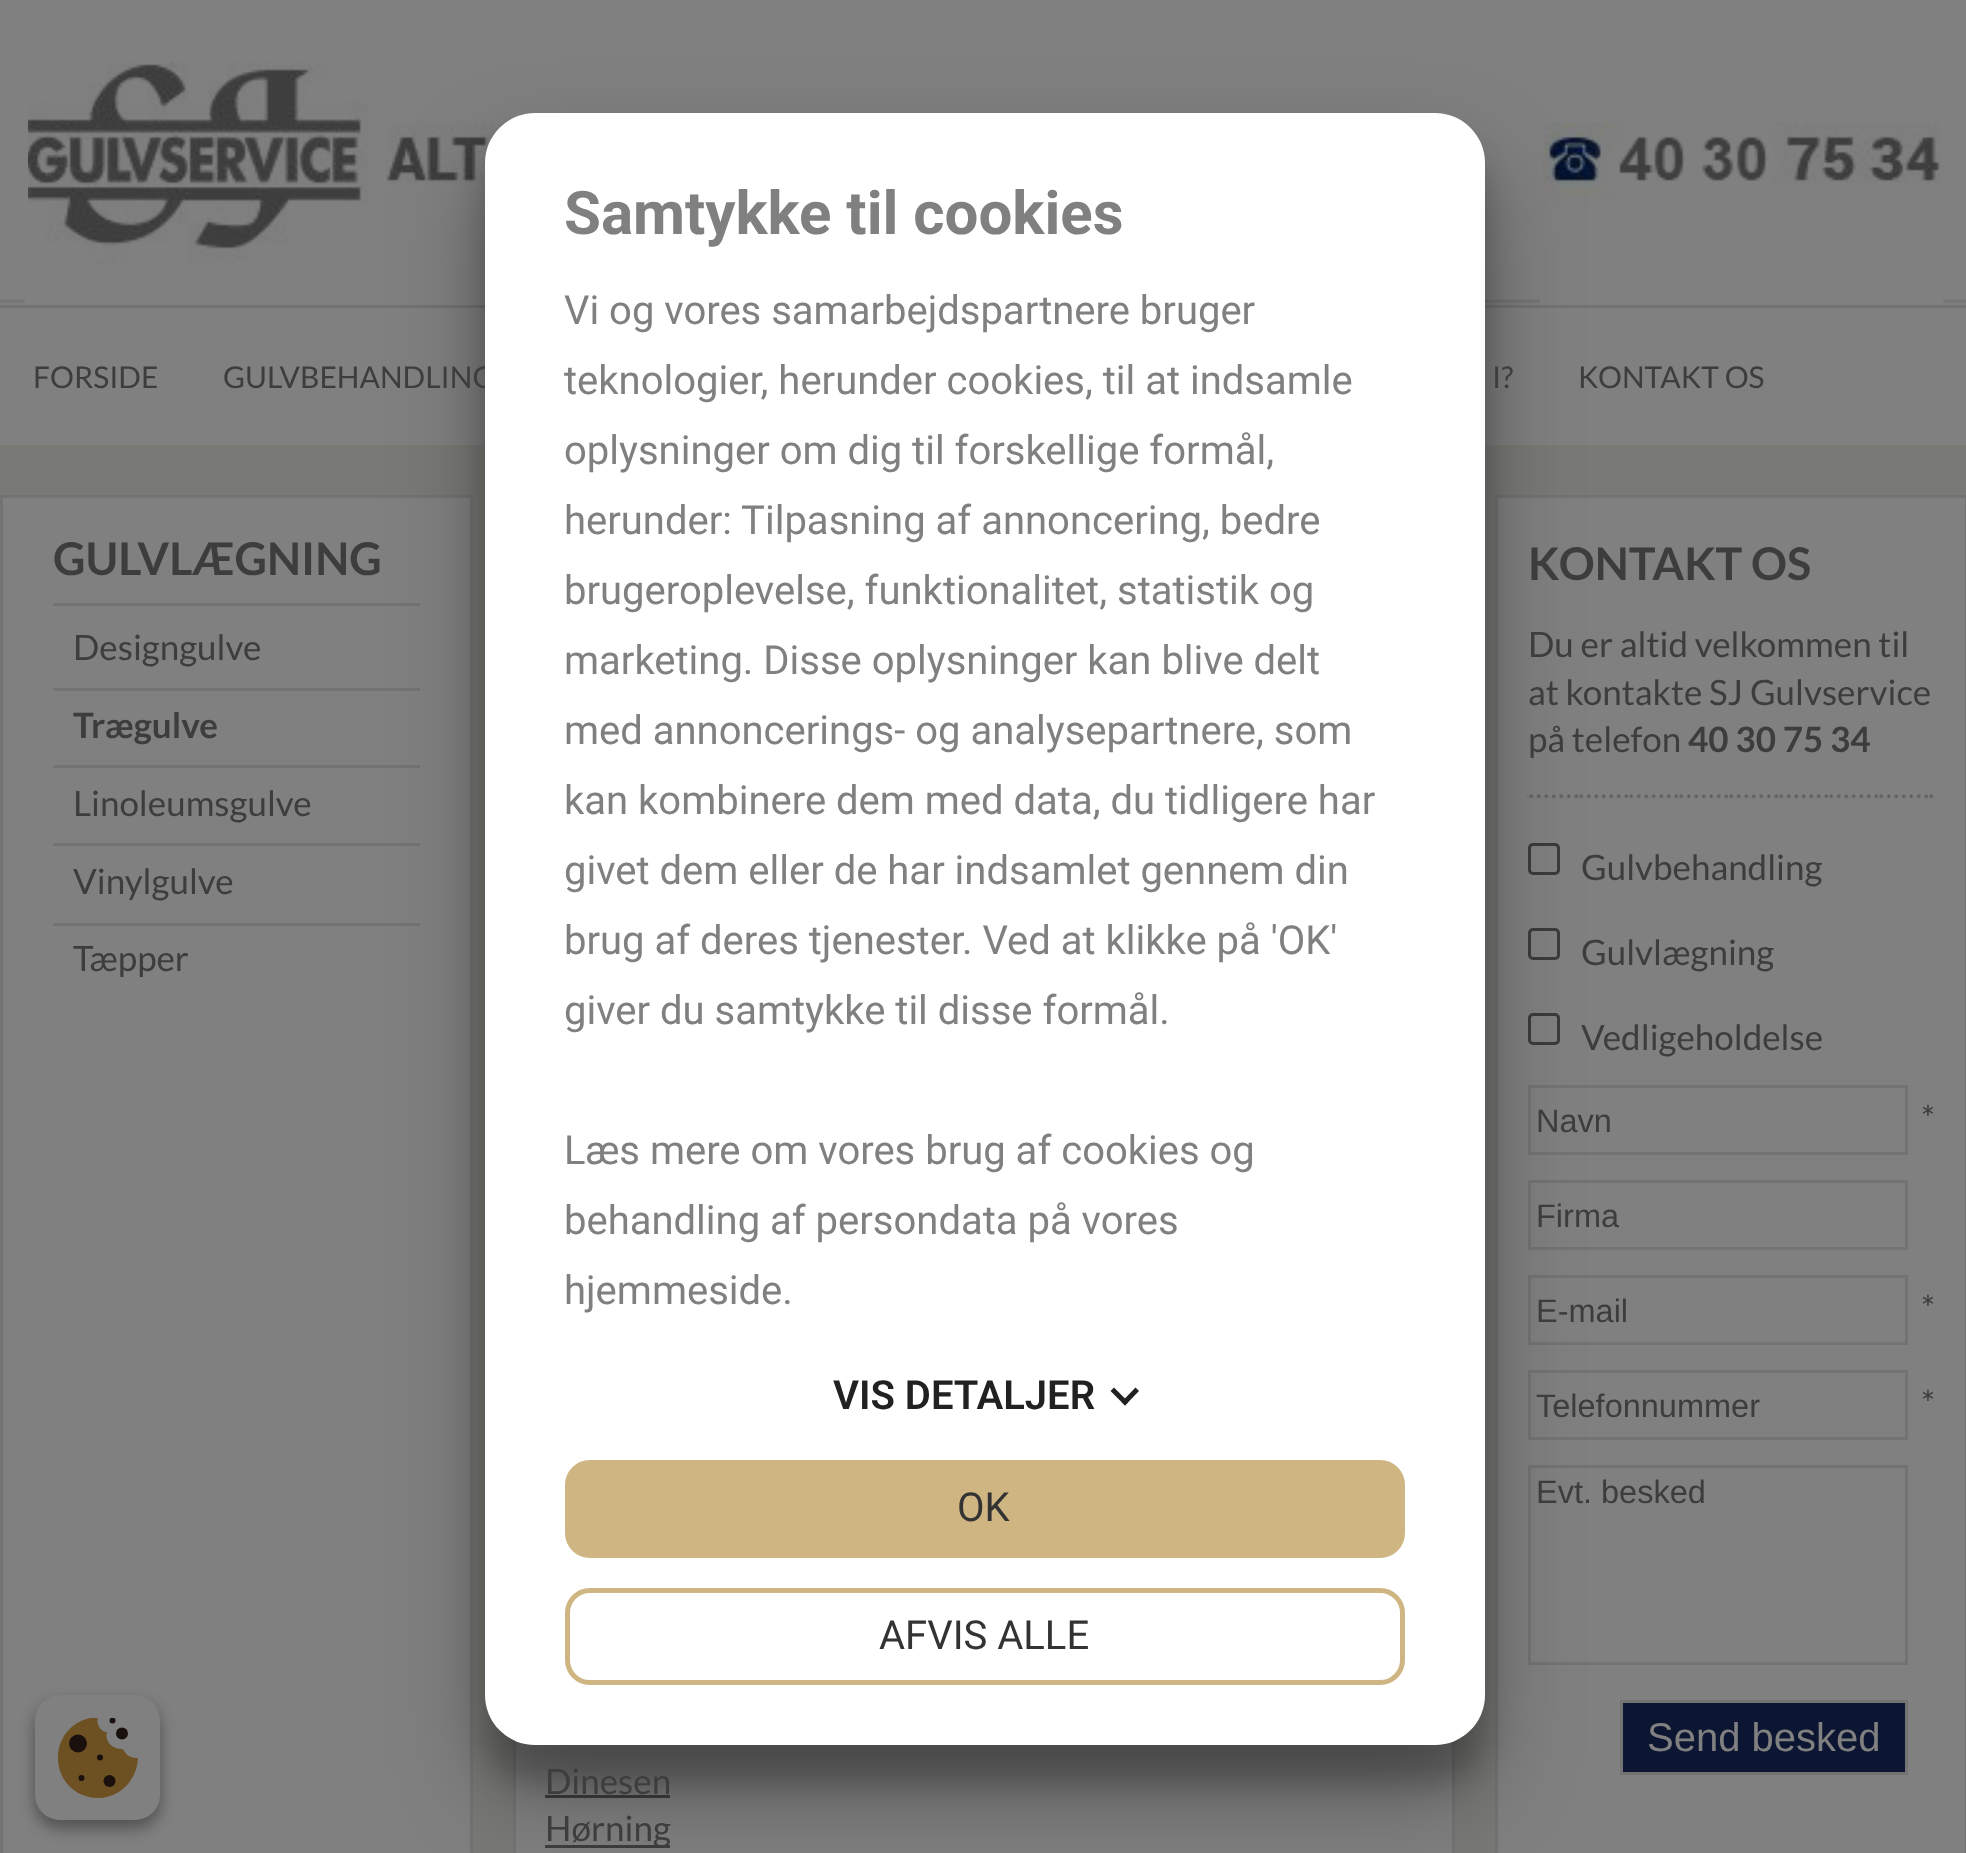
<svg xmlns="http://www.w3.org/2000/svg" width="1966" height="1853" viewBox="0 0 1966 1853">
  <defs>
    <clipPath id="clip1"><path d="M58 1718h80v80H58z"/></clipPath>
  </defs>
  <rect width="100%" height="100%" fill="#797975"/>
  <image x="0" y="0" width="1966" height="305" href="img/1.png"/>
  <image x="28" y="62" width="704" height="240" href="img/2.png"/>
  <path d="M26.5 1.5h707v302H26.5z" fill="none" stroke="#808080" stroke-width="3"/>
  <path d="M0 308h1966v137H0z" fill="#808080"/>
  <path d="M0 305h1966v3H0z" fill="#737373"/>
  <path d="M1.5 496.5h470v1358H1.5z" fill="#808080" stroke="#737373" stroke-width="3"/>
  <path d="M1496.5 496.5h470v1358H1496.5z" fill="#808080" stroke="#737373" stroke-width="3"/>
  <image x="1527" y="794" width="407" height="5" href="img/4.png"/>
  <rect x="1529.5" y="844.5" width="29" height="29" rx="3.5" fill="none" stroke="#3b3b3b" stroke-width="3"/>
  <rect x="1529.5" y="929.5" width="29" height="29" rx="3.5" fill="none" stroke="#3b3b3b" stroke-width="3"/>
  <rect x="1529.5" y="1014.5" width="29" height="29" rx="3.5" fill="none" stroke="#3b3b3b" stroke-width="3"/>
  <path d="M1529.5 1086.5h377v67H1529.5z" fill="none" stroke="#737373" stroke-width="3"/>
  <path d="M1529.5 1181.5h377v67H1529.5z" fill="none" stroke="#737373" stroke-width="3"/>
  <path d="M1529.5 1276.5h377v67H1529.5z" fill="none" stroke="#737373" stroke-width="3"/>
  <path d="M1529.5 1371.5h377v67H1529.5z" fill="none" stroke="#737373" stroke-width="3"/>
  <path d="M1529.5 1466.5h377v197H1529.5z" fill="none" stroke="#737373" stroke-width="3"/>
  <path d="M516 1741h936v112H516z" fill="#808080"/>
  <path d="M514.5 496.5h939v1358H514.5z" fill="none" stroke="#737373" stroke-width="3"/>
  <path d="M545 1795h125v3H545z" fill="#3e3e3e"/>
  <rect x="485" y="150" width="1000" height="1633" rx="50" fill="#00000038" filter="blur(15px)"/>
  <image x="1543" y="122" width="397" height="180" href="img/3.png"/>
  <path d="M1541.5 1.5h400v302H1541.5z" fill="none" stroke="#808080" stroke-width="3"/>
  <path d="M53 603h367v3H53z" fill="#737373"/>
  <path d="M53 688h367v3H53z" fill="#737373"/>
  <path d="M53 765h367v3H53z" fill="#737373"/>
  <path d="M53 843h367v3H53z" fill="#737373"/>
  <path d="M53 923h367v3H53z" fill="#737373"/>
  <path d="M1621.5 1701.5h285v72H1621.5z" fill="#0c1632" stroke="#737373" stroke-width="3"/>
  <path d="M545 1845h125v3H545z" fill="#3e3e3e"/>
  <rect x="485" y="160" width="1000" height="1633" rx="50" fill="#0000004d" filter="blur(47.5px)"/>
  <rect x="35" y="1703" width="125" height="125" rx="25" fill="#0000003b" filter="blur(7.5px)"/>
  <rect x="35" y="1703" width="125" height="125" rx="25" fill="#00000029" filter="blur(7.5px)"/>
  <rect x="35" y="1695" width="125" height="125" rx="25" fill="#808080"/>
  <g clip-path="url(#clip1)">
    <path d="M136 1758C130 1758 125 1754 123 1749C113 1750 104 1741 107 1732C100 1731 96 1724 98 1717C75 1718 58 1735 58 1758C58 1780 75 1798 98 1798C120 1798 137 1780 138 1758Z" fill="#6d5123"/>
  </g>
  <circle cx="122" cy="1733.5" r="6" fill="#1a100d"/>
  <circle cx="109.5" cy="1781" r="6" fill="#1a100d"/>
  <circle cx="78" cy="1743.5" r="9" fill="#1a100d"/>
  <g clip-path="url(#clip1)">
    <circle cx="112.5" cy="1720.5" r="3" fill="#1a100d"/>
  </g>
  <circle cx="100" cy="1757.5" r="3" fill="#1a100d"/>
  <circle cx="81.5" cy="1778" r="3" fill="#1a100d"/>
  <g font-family="Lato" font-size="30" fill="#3d3d3d">
    <text x="33" y="388">FORSIDE</text>
    <text x="223" y="388">GULVBEHANDLING</text>
  </g>
  <rect x="485" y="113" width="1000" height="1632" rx="50" fill="#fff"/>
  <rect x="567.5" y="1462.5" width="835" height="93" rx="22.5" fill="#ceb582" stroke="#ceb582" stroke-width="5"/>
  <text x="957" y="1521" font-family="Roboto" font-size="40" fill="#333">OK</text>
  <rect x="567.5" y="1590.5" width="835" height="92" rx="22.5" fill="none" stroke="#ceb582" stroke-width="5"/>
  <text x="879" y="1649" font-family="Roboto" font-size="40" fill="#333">AFVIS ALLE</text>
  <path d="M1135.5 1387.5L1139 1391L1125 1405.5L1121.5 1402Z" fill="#212121"/>
  <path d="M1114 1387.5L1128.5 1402L1125 1405.5L1110.5 1391Z" fill="#212121"/>
  <text x="833" y="1409" font-family="Roboto" font-size="40" font-weight="600" fill="#212121">VIS DETALJER</text>
  <g font-family="Roboto" font-size="40" fill="#808080">
    <text x="564" y="1304">hjemmeside.</text>
    <text x="564" y="1234">behandling af persondata på vores</text>
    <text x="564" y="1164">Læs mere om vores brug af cookies og</text>
    <text x="564" y="1024">giver du samtykke til disse formål.</text>
    <text x="564" y="954">brug af deres tjenester. Ved at klikke på 'OK'</text>
    <text x="564" y="884">givet dem eller de har indsamlet gennem din</text>
    <text x="564" y="814">kan kombinere dem med data, du tidligere har</text>
    <text x="564" y="744">med annoncerings- og analysepartnere, som</text>
    <text x="564" y="674">marketing. Disse oplysninger kan blive delt</text>
    <text x="564" y="604">brugeroplevelse, funktionalitet, statistik og</text>
    <text x="564" y="534">herunder: Tilpasning af annoncering, bedre</text>
    <text x="564" y="464">oplysninger om dig til forskellige formål,</text>
    <text x="564" y="394">teknologier, herunder cookies, til at indsamle</text>
    <text x="564" y="324">Vi og vores samarbejdspartnere bruger</text>
  </g>
  <text x="564" y="234" font-family="Roboto" font-size="60" font-weight="bold" fill="#808080">Samtykke til cookies</text>
  <g font-family="Lato" font-size="30" fill="#3d3d3d">
    <text x="1492" y="388">I?</text>
    <text x="1578" y="388">KONTAKT OS</text>
  </g>
  <text x="53" y="575" font-family="Lato" font-size="45" font-weight="bold" fill="#3d3d3d">GULVLÆGNING</text>
  <text x="73" y="660" font-family="Lato" font-size="35" fill="#3d3d3d">Designgulve</text>
  <text x="73" y="738" font-family="Lato" font-size="35" font-weight="bold" fill="#3d3d3d">Trægulve</text>
  <g font-family="Lato" font-size="35" fill="#3d3d3d">
    <text x="73" y="816">Linoleumsgulve</text>
    <text x="73" y="894">Vinylgulve</text>
    <text x="73" y="971">Tæpper</text>
  </g>
  <text x="1528" y="580" font-family="Lato" font-size="45" font-weight="bold" fill="#3d3d3d">KONTAKT OS</text>
  <g font-family="Lato" font-size="35" fill="#3d3d3d">
    <text x="1528" y="657">Du er altid velkommen til</text>
    <text x="1528" y="705">at kontakte SJ Gulvservice</text>
    <text x="1528" y="752">på telefon</text>
  </g>
  <text x="1688" y="752" font-family="Lato" font-size="35" font-weight="bold" fill="#3d3d3d">40 30 75 34</text>
  <g font-family="Lato" font-size="35" fill="#3d3d3d">
    <text x="1581" y="880">Gulvbehandling</text>
    <text x="1581" y="965">Gulvlægning</text>
    <text x="1581" y="1050">Vedligeholdelse</text>
  </g>
  <text x="1536" y="1132" font-family="Liberation Sans" font-size="32.5" fill="#3d3d3d">Navn</text>
  <text x="1921" y="1131" font-family="Lato" font-size="35" fill="#3d3d3d">*</text>
  <g font-family="Liberation Sans" font-size="32.5" fill="#3d3d3d">
    <text x="1536" y="1227">Firma</text>
    <text x="1536" y="1322">E-mail</text>
  </g>
  <text x="1921" y="1321" font-family="Lato" font-size="35" fill="#3d3d3d">*</text>
  <text x="1536" y="1417" font-family="Liberation Sans" font-size="32.5" fill="#3d3d3d">Telefonnummer</text>
  <text x="1921" y="1416" font-family="Lato" font-size="35" fill="#3d3d3d">*</text>
  <text x="1536" y="1503" font-family="Liberation Sans" font-size="32.5" fill="#3d3d3d">Evt. besked</text>
  <text x="1647" y="1751" font-family="Liberation Sans" font-size="40" fill="#808080">Send besked</text>
  <g font-family="Lato" font-size="35" fill="#3d3d3d">
    <text x="545" y="1794">Dinesen</text>
    <text x="545" y="1841">Hørning</text>
  </g>
</svg>
